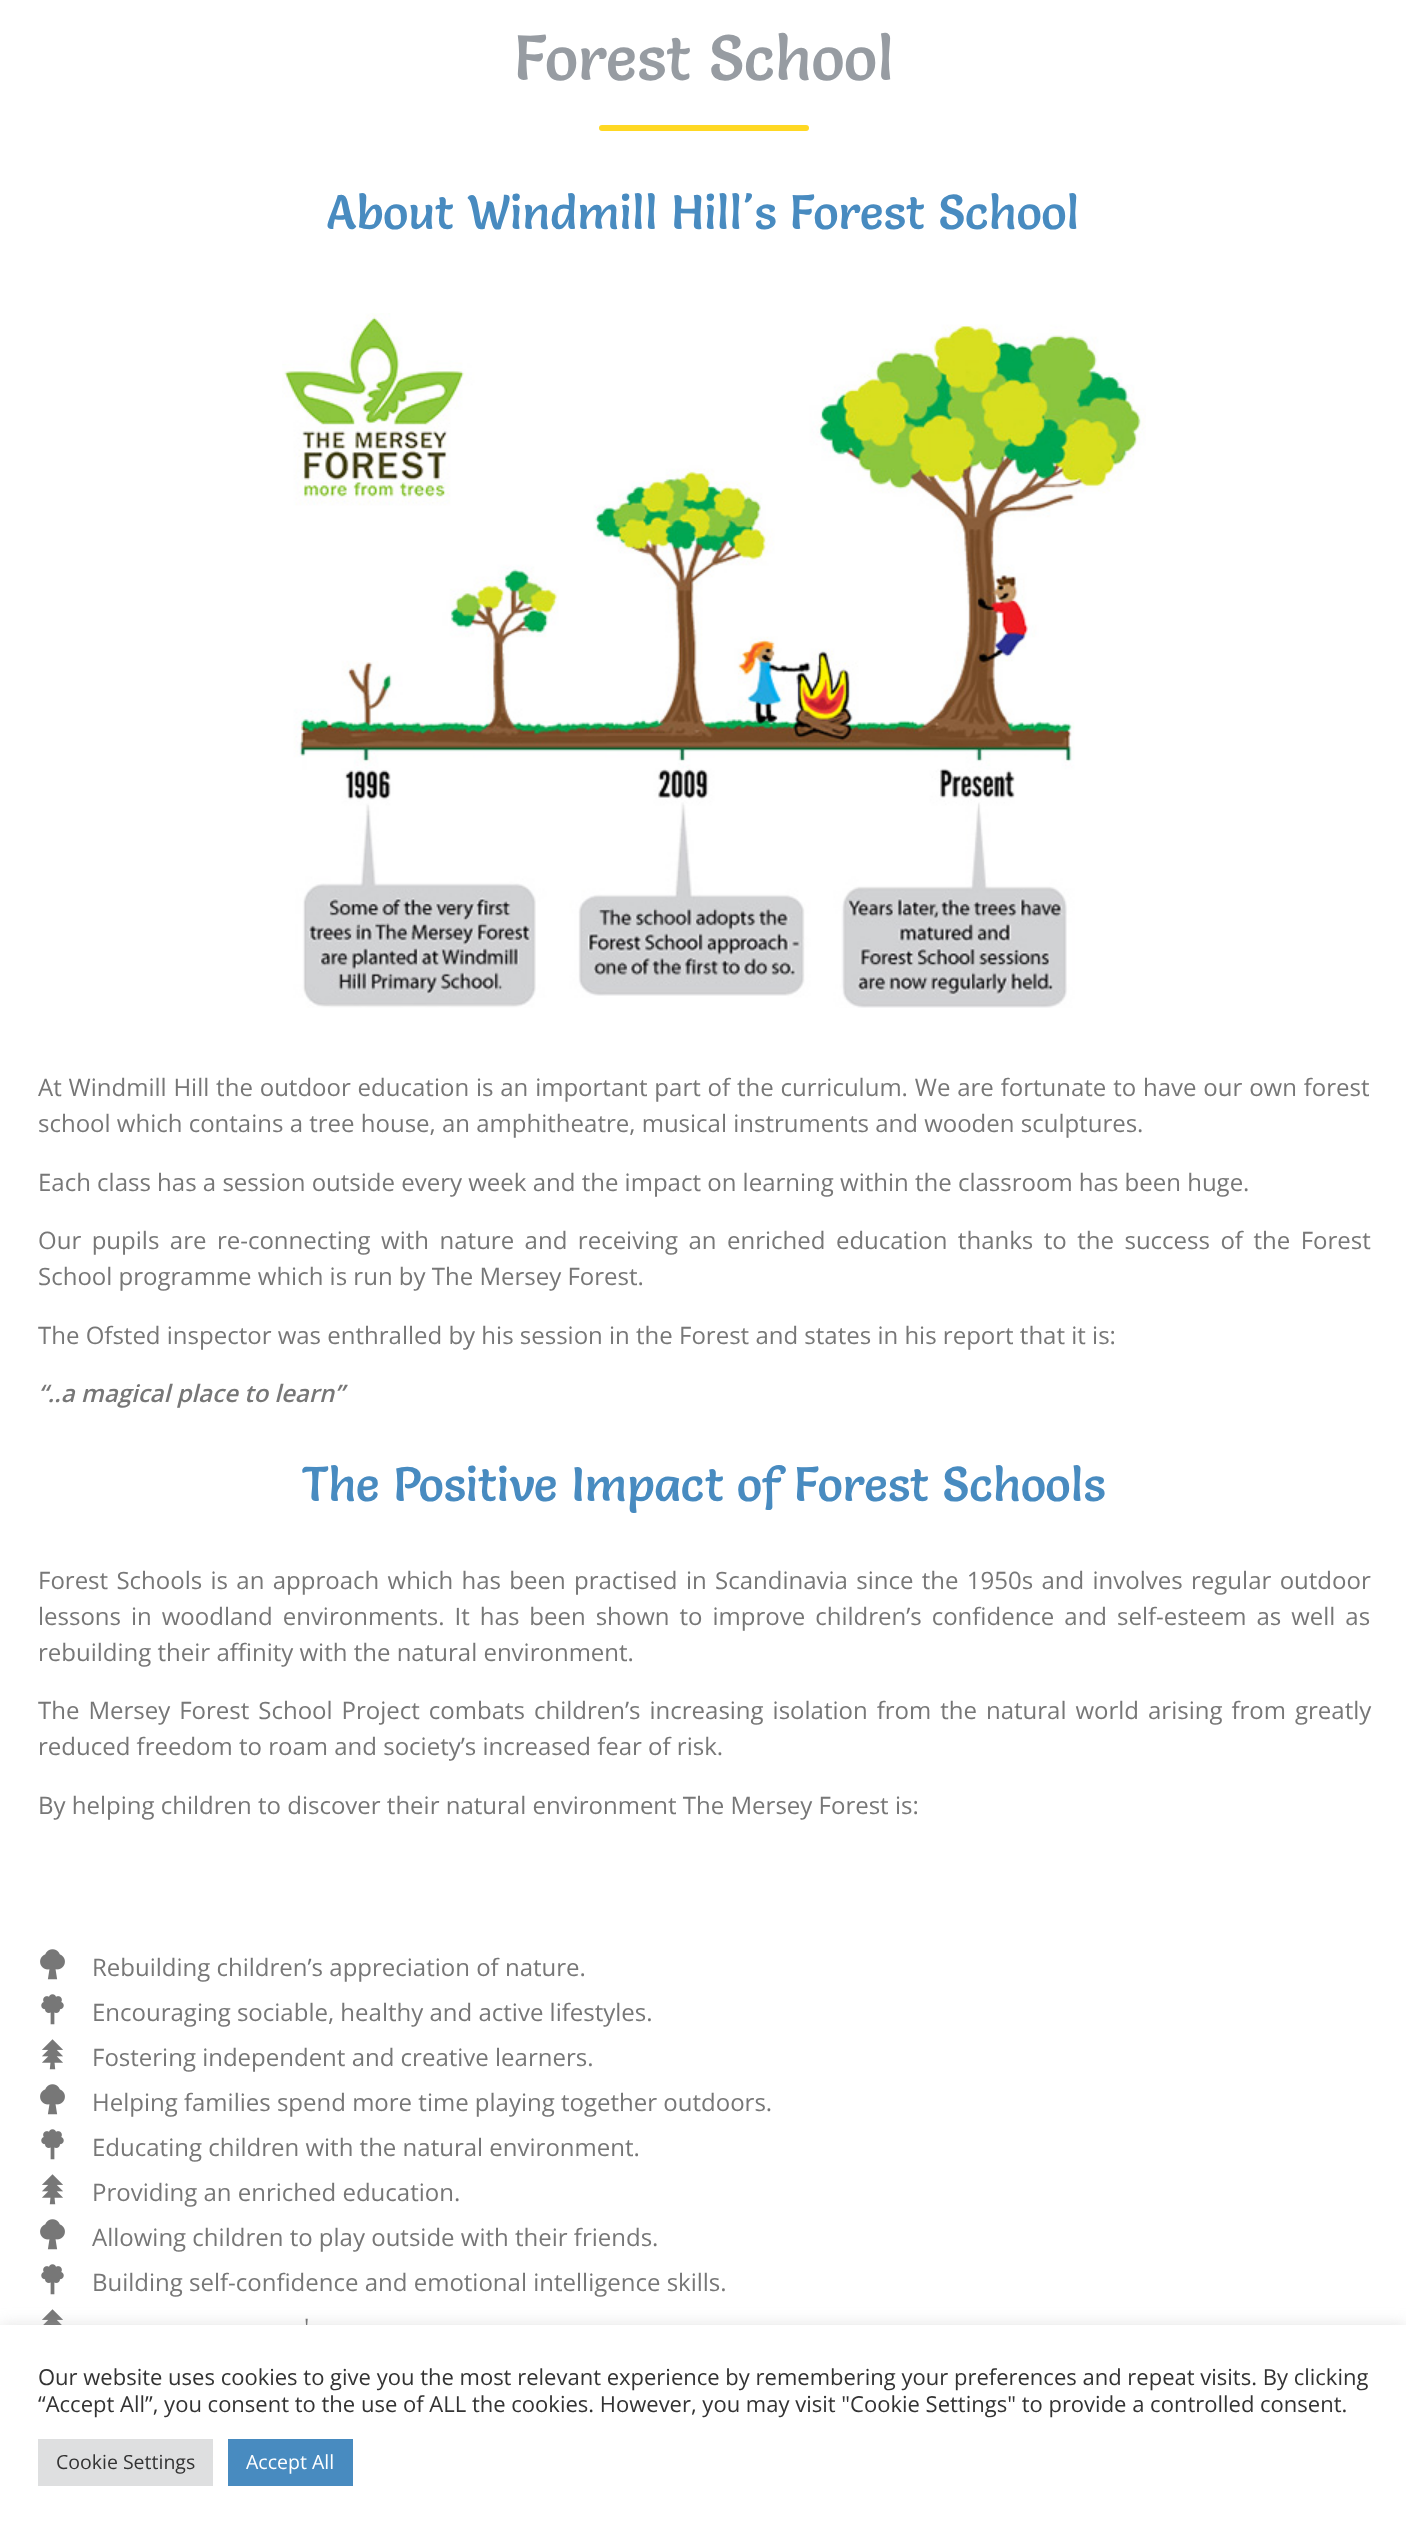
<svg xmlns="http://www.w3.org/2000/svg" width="1406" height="2530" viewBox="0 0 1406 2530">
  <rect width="100%" height="100%" fill="#fff"/>
  <rect x="599" y="125" width="210" height="6" rx="3" fill="#ffd823"/>
  <image x="282" y="313" width="864" height="695" href="img/1.png"/>
  <image x="40" y="1949" width="25" height="31" href="img/2.png"/>
  <image x="41" y="1994" width="23" height="31" href="img/3.png"/>
  <image x="42" y="2039" width="21" height="31" href="img/4.png"/>
  <image x="40" y="2084" width="25" height="31" href="img/2.png"/>
  <image x="41" y="2129" width="23" height="31" href="img/3.png"/>
  <image x="42" y="2174" width="21" height="31" href="img/4.png"/>
  <image x="40" y="2219" width="25" height="31" href="img/2.png"/>
  <image x="41" y="2264" width="23" height="31" href="img/3.png"/>
  <image x="42" y="2309" width="21" height="16" href="img/5.png"/>
  <path d="M0 2324h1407v205H0z" fill="#acabab4d" filter="blur(7.5px)"/>
  <text x="514" y="80" font-family="Salsa" font-size="63" fill="#979ca2">Forest School</text>
  <text x="327" y="229" font-family="Salsa" font-size="48" fill="#488bc0">About Windmill Hill's Forest School</text>
  <g font-family="Open Sans" font-size="24" fill="#777">
    <text x="38" y="1096" word-spacing="0.6">At Windmill Hill the outdoor education is an important part of the curriculum. We are fortunate to have our own forest</text>
    <text x="38" y="1132">school which contains a tree house, an amphitheatre, musical instruments and wooden sculptures.</text>
    <text x="38" y="1191">Each class has a session outside every week and the impact on learning within the classroom has been huge.</text>
    <text x="38" y="1249" word-spacing="4.25">Our pupils are re-connecting with nature and receiving an enriched education thanks to the success of the Forest</text>
    <text x="38" y="1285">School programme which is run by The Mersey Forest.</text>
    <text x="38" y="1344">The Ofsted inspector was enthralled by his session in the Forest and states in his report that it is:</text>
  </g>
  <text x="38" y="1402" font-family="Open Sans" font-size="24" font-weight="600" font-style="italic" fill="#777">“..a magical place to learn”</text>
  <text x="302" y="1501" font-family="Salsa" font-size="48" fill="#488bc0">The Positive Impact of Forest Schools</text>
  <g font-family="Open Sans" font-size="24" fill="#777">
    <text x="38" y="1589" word-spacing="2.1">Forest Schools is an approach which has been practised in Scandinavia since the 1950s and involves regular outdoor</text>
    <text x="38" y="1625" word-spacing="3.75">lessons in woodland environments. It has been shown to improve children’s confidence and self-esteem as well as</text>
    <text x="38" y="1661">rebuilding their affinity with the natural environment.</text>
    <text x="38" y="1719" word-spacing="2.75">The Mersey Forest School Project combats children’s increasing isolation from the natural world arising from greatly</text>
    <text x="38" y="1755">reduced freedom to roam and society’s increased fear of risk.</text>
    <text x="38" y="1814">By helping children to discover their natural environment The Mersey Forest is:</text>
    <text x="92" y="1976">Rebuilding children’s appreciation of nature.</text>
    <text x="92" y="2021">Encouraging sociable, healthy and active lifestyles.</text>
    <text x="92" y="2066">Fostering independent and creative learners.</text>
    <text x="92" y="2111">Helping families spend more time playing together outdoors.</text>
    <text x="92" y="2156">Educating children with the natural environment.</text>
    <text x="92" y="2201">Providing an enriched education.</text>
    <text x="92" y="2246">Allowing children to play outside with their friends.</text>
    <text x="92" y="2291">Building self-confidence and emotional intelligence skills.</text>
    <text x="304" y="2336">'</text>
  </g>
  <path d="M0 2325h1406v205H0z" fill="#fff"/>
  <g font-family="Open Sans" font-size="22" fill="#333">
    <text x="38" y="2385">Our website uses cookies to give you the most relevant experience by remembering your preferences and repeat visits. By clicking</text>
    <text x="38" y="2412">“Accept All”, you consent to the use of ALL the cookies. However, you may visit "Cookie Settings" to provide a controlled consent.</text>
  </g>
  <path d="M38 2439h175v47H38z" fill="#dedfe0"/>
  <text x="56" y="2469" font-family="Open Sans" font-size="19.5" fill="#333">Cookie Settings</text>
  <path d="M228 2439h125v47H228z" fill="#488bc0"/>
  <text x="246" y="2469" font-family="Open Sans" font-size="19.5" fill="#fff">Accept All</text>
</svg>
